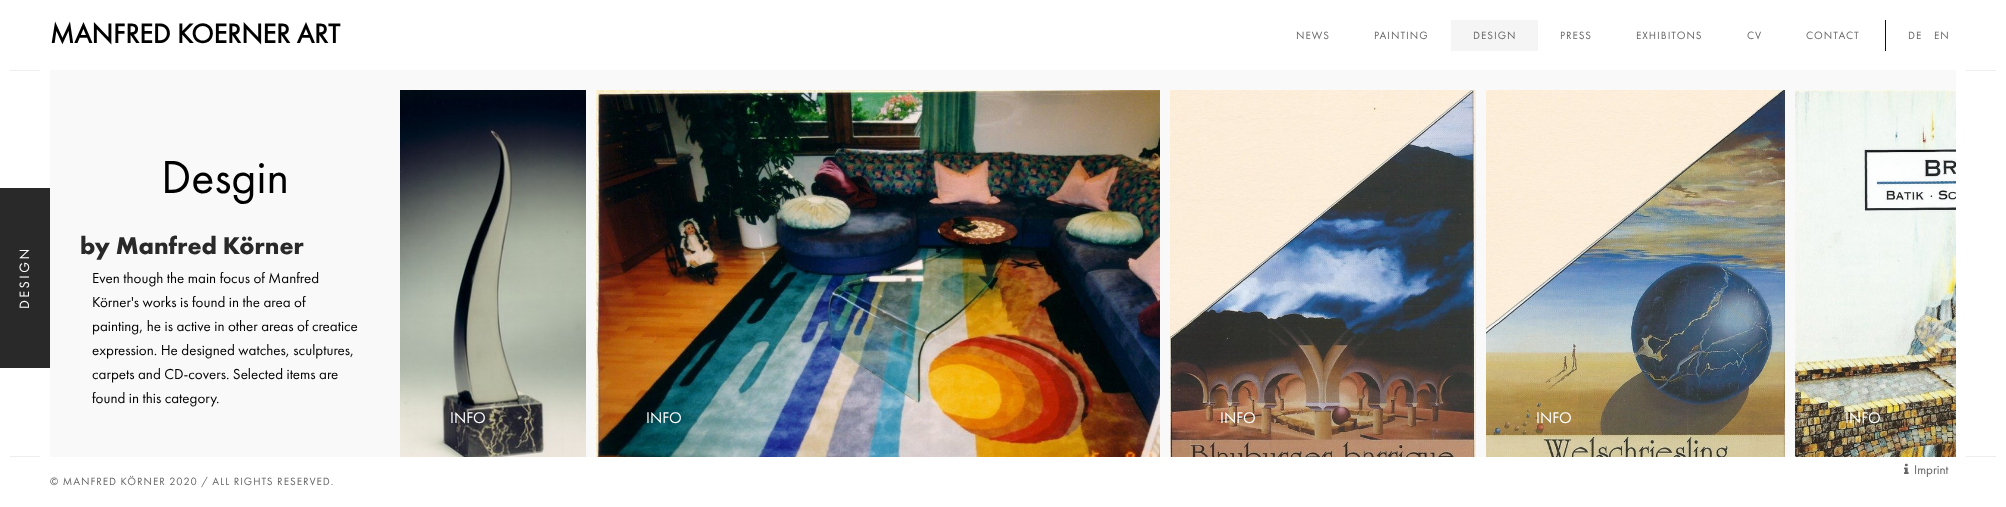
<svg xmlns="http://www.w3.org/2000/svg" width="2006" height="507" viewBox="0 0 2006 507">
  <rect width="100%" height="100%" fill="#f9f9f9"/>
  <path d="M0 0h2006v70H0z" fill="#fff"/>
  <path d="M1451 20h87v31H1451z" fill="#f5f5f5"/>
  <path d="M1885 20h1v31H1885z" fill="#111"/>
  <path d="M0 70h50v387H0z" fill="#fff"/>
  <path d="M10 70h30v1H10z" fill="#eee"/>
  <path d="M10 456h30v1H10z" fill="#eee"/>
  <path d="M1956 70h50v387H1956z" fill="#fff"/>
  <path d="M1966 70h30v1H1966z" fill="#eee"/>
  <path d="M1966 456h30v1H1966z" fill="#eee"/>
  <path d="M0 188h50v180H0z" fill="#292929"/>
  <image x="400" y="90" width="186" height="367" href="img/1.png"/>
  <image x="596" y="90" width="564" height="367" href="img/2.png"/>
  <image x="1170" y="90" width="306" height="367" href="img/3.png"/>
  <image x="1486" y="90" width="299" height="367" href="img/4.png"/>
  <image x="1795" y="90" width="161" height="367" href="img/5.png"/>
  <path d="M0 457h2006v50H0z" fill="#fff"/>
  <image x="1904" y="463" width="5" height="11" href="img/6.png"/>
  <text x="50" y="43" font-family="'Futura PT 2'" font-size="28" font-weight="bold" fill="#000">MANFRED KOERNER ART</text>
  <g font-family="Futura PT" font-size="11" letter-spacing="1" fill="#666">
    <text x="1296" y="39">NEWS</text>
    <text x="1374" y="39">PAINTING</text>
    <text x="1473" y="39">DESIGN</text>
    <text x="1560" y="39">PRESS</text>
    <text x="1636" y="39">EXHIBITONS</text>
    <text x="1747" y="39">CV</text>
    <text x="1806" y="39">CONTACT</text>
    <text x="1908" y="39">DE</text>
    <text x="1934" y="39">EN</text>
  </g>
  <text x="29" y="309" transform="rotate(-90 29 309)" font-family="Futura PT" font-size="14" letter-spacing="2.5" fill="#fff">DESIGN</text>
  <text x="161" y="193" font-family="Futura PT" font-size="48" fill="#000">Desgin</text>
  <text x="80" y="254" font-family="Futura PT" font-size="25" font-weight="bold" fill="#292929">by Manfred Körner</text>
  <g font-family="Futura PT" font-size="15" fill="#000">
    <text x="92" y="283">Even though the main focus of Manfred</text>
    <text x="92" y="307">Körner's works is found in the area of</text>
    <text x="92" y="331">painting, he is active in other areas of creatice</text>
    <text x="92" y="355">expression. He designed watches, sculptures,</text>
    <text x="92" y="379">carpets and CD-covers. Selected items are</text>
    <text x="92" y="403">found in this category.</text>
  </g>
  <g font-family="Futura PT" font-size="16" fill="#fff">
    <text x="450" y="423">INFO</text>
    <text x="646" y="423">INFO</text>
    <text x="1220" y="423">INFO</text>
    <text x="1536" y="423">INFO</text>
    <text x="1845" y="423">INFO</text>
  </g>
  <text x="1914" y="474" font-family="Futura PT" font-size="13" fill="#666">Imprint</text>
  <text x="50" y="485" font-family="Futura PT" font-size="11" letter-spacing="1" fill="#666">© MANFRED KÖRNER 2020 / ALL RIGHTS RESERVED.</text>
</svg>
